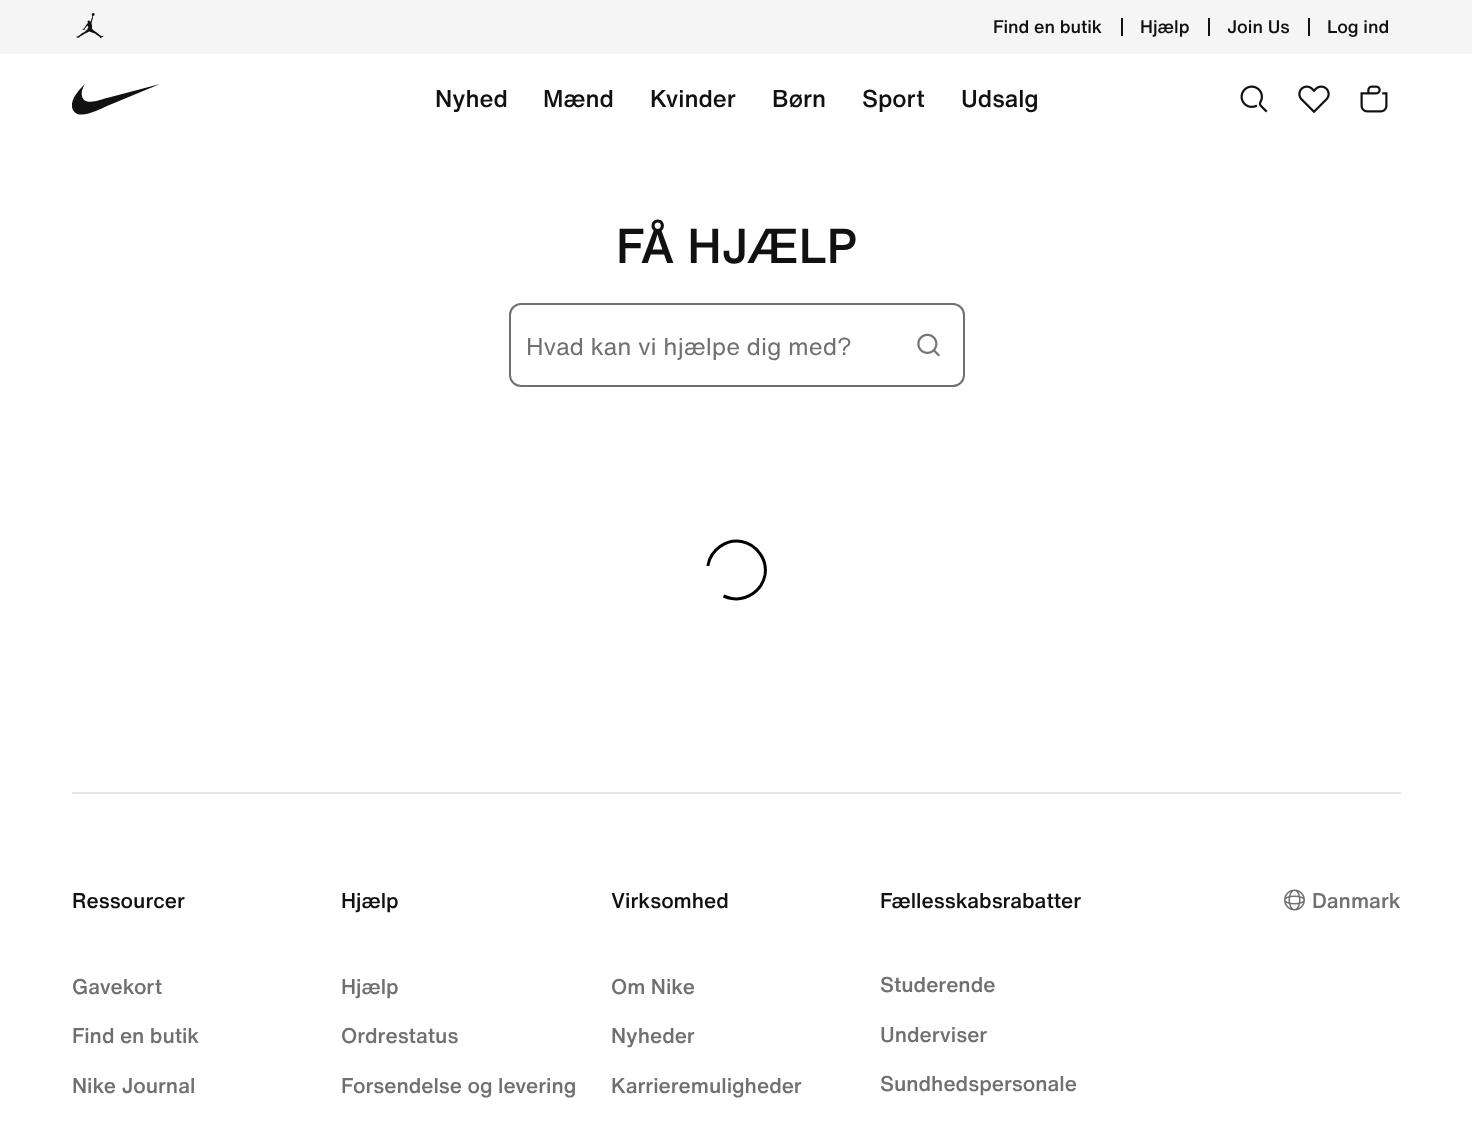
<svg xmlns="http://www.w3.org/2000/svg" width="1472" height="1131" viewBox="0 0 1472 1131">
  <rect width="100%" height="100%" fill="#fff"/>
  <path d="M0 0h1472v54H0z" fill="#f5f5f5"/>
  <image x="76" y="13" width="28" height="26" href="img/1.png"/>
  <path d="M1121 18h2v18H1121z" fill="#111"/>
  <path d="M1208 18h2v18H1208z" fill="#111"/>
  <path d="M1308 18h2v18H1308z" fill="#111"/>
  <path d="M160 84L107 106C100 109 75 123 72 107C71 98 79 90 85 84C83 87 81 92 82 96C84 107 102 99 107 98Z" fill="#111" fill-rule="evenodd"/>
  <image x="1240" y="85" width="28" height="28" href="img/2.png"/>
  <image x="1298" y="85" width="32" height="29" href="img/3.png"/>
  <image x="1360" y="85" width="28" height="28" href="img/4.png"/>
  <image x="917" y="333" width="23" height="24" href="img/5.png"/>
  <rect x="510" y="304" width="454" height="82" rx="11" fill="none" stroke="#707072" stroke-width="2"/>
  <path d="M708 565C711 549.5 726 539 741.5 541.5C757 544.5 767.5 559.5 765 575C762 590.5 747 601 731.5 598.5C728.5 598 726 597 723.5 596M708 566V565" fill="none" stroke="#000" stroke-width="3"/>
  <path d="M72 792h1329v2H72z" fill="#e5e5e5"/>
  <image x="1284" y="889" width="21" height="22" href="img/6.png"/>
  <g font-family="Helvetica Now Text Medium" font-size="18" font-weight="500" fill="#111">
    <text x="993" y="33">Find en butik</text>
    <text x="1140" y="33">Hjælp</text>
    <text x="1227" y="33">Join Us</text>
    <text x="1327" y="33">Log ind</text>
  </g>
  <g font-family="Helvetica Now Text Medium" font-size="24" font-weight="500" fill="#111">
    <text x="435" y="107">Nyhed</text>
    <text x="543" y="107">Mænd</text>
    <text x="650" y="107">Kvinder</text>
    <text x="772" y="107">Børn</text>
    <text x="862" y="107">Sport</text>
    <text x="961" y="107">Udsalg</text>
  </g>
  <text x="616" y="263" font-family="Helvetica Now Text Medium" font-size="48" font-weight="500" fill="#111">FÅ HJÆLP</text>
  <text x="526" y="355" font-family="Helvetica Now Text" font-size="24" fill="#707072">Hvad kan vi hjælpe dig med?</text>
  <text x="72" y="908" font-family="Helvetica Now Text Medium" font-size="21" font-weight="500" fill="#111">Ressourcer</text>
  <g font-family="Helvetica Now Text Medium" font-size="21" font-weight="500" fill="#707072">
    <text x="72" y="994">Gavekort</text>
    <text x="72" y="1043">Find en butik</text>
    <text x="72" y="1093">Nike Journal</text>
  </g>
  <text x="341" y="908" font-family="Helvetica Now Text Medium" font-size="21" font-weight="500" fill="#111">Hjælp</text>
  <g font-family="Helvetica Now Text Medium" font-size="21" font-weight="500" fill="#707072">
    <text x="341" y="994">Hjælp</text>
    <text x="341" y="1043">Ordrestatus</text>
    <text x="341" y="1093">Forsendelse og levering</text>
  </g>
  <text x="611" y="908" font-family="Helvetica Now Text Medium" font-size="21" font-weight="500" fill="#111">Virksomhed</text>
  <g font-family="Helvetica Now Text Medium" font-size="21" font-weight="500" fill="#707072">
    <text x="611" y="994">Om Nike</text>
    <text x="611" y="1043">Nyheder</text>
    <text x="611" y="1093">Karrieremuligheder</text>
  </g>
  <text x="880" y="908" font-family="Helvetica Now Text Medium" font-size="21" font-weight="500" fill="#111">Fællesskabsrabatter</text>
  <g font-family="Helvetica Now Text Medium" font-size="21" font-weight="500" fill="#707072">
    <text x="880" y="992">Studerende</text>
    <text x="880" y="1042">Underviser</text>
    <text x="880" y="1091">Sundhedspersonale</text>
    <text x="1312" y="908">Danmark</text>
  </g>
</svg>
